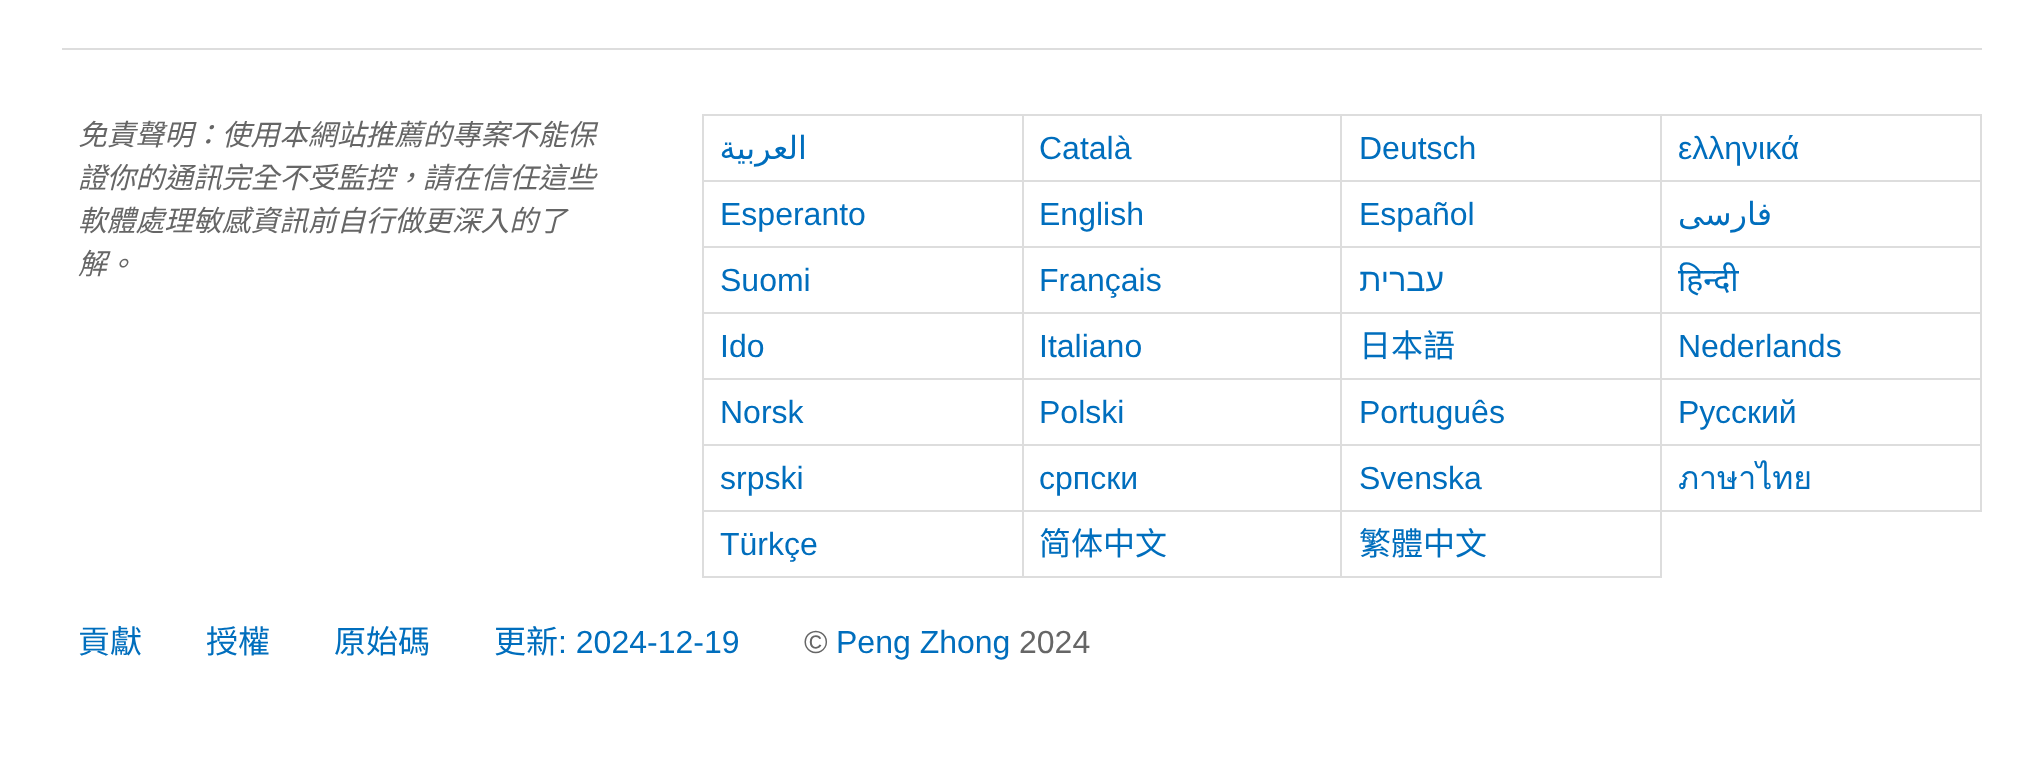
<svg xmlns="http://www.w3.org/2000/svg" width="2043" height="770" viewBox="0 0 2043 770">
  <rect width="100%" height="100%" fill="#fff"/>
  <path d="M62 48h1920v2H62z" fill="#ddd"/>
  <path d="M702 114h1280v2H702z" fill="#ddd"/>
  <path d="M702 114h2v464H702z" fill="#ddd"/>
  <path d="M1022 116h2v462H1022z" fill="#ddd"/>
  <path d="M704 180h320v2H704z" fill="#ddd"/>
  <path d="M1340 116h2v462H1340z" fill="#ddd"/>
  <path d="M1024 180h318v2H1024z" fill="#ddd"/>
  <path d="M1660 116h2v462H1660z" fill="#ddd"/>
  <path d="M1342 180h320v2H1342z" fill="#ddd"/>
  <path d="M1980 116h2v396H1980z" fill="#ddd"/>
  <path d="M1662 180h320v2H1662z" fill="#ddd"/>
  <path d="M704 246h1278v2H704z" fill="#ddd"/>
  <path d="M704 312h1278v2H704z" fill="#ddd"/>
  <path d="M704 378h1278v2H704z" fill="#ddd"/>
  <path d="M704 444h1278v2H704z" fill="#ddd"/>
  <path d="M704 510h1278v2H704z" fill="#ddd"/>
  <path d="M704 576h958v2H704z" fill="#ddd"/>
  <g font-family="Noto Sans CJK TC" font-size="28.75" font-style="italic" fill="#666">
    <text x="78" y="145">免責聲明：使用本網站推薦的專案不能保</text>
    <text x="78" y="188">證你的通訊完全不受監控，請在信任這些</text>
    <text x="78" y="231">軟體處理敏感資訊前自行做更深入的了</text>
    <text x="78" y="274">解。</text>
  </g>
  <text x="807" y="159" font-family="DejaVu Sans" font-size="32" direction="rtl" fill="#006ebd">العربية</text>
  <g font-family="Liberation Sans" font-size="32" fill="#006ebd">
    <text x="1039" y="159">Català</text>
    <text x="1359" y="159">Deutsch</text>
    <text x="1678" y="159">ελληνικά</text>
    <text x="720" y="225">Esperanto</text>
    <text x="1039" y="225">English</text>
    <text x="1359" y="225">Español</text>
  </g>
  <text x="1772" y="225" font-family="DejaVu Sans" font-size="32" direction="rtl" fill="#006ebd">فارسی</text>
  <g font-family="Liberation Sans" font-size="32" fill="#006ebd">
    <text x="720" y="291">Suomi</text>
    <text x="1039" y="291">Français</text>
  </g>
  <text x="1444" y="291" font-family="Liberation Sans" font-size="32" direction="rtl" fill="#006ebd">עברית</text>
  <text x="1678" y="291" font-family="Noto Sans" font-size="32" fill="#006ebd">हिन्दी</text>
  <g font-family="Liberation Sans" font-size="32" fill="#006ebd">
    <text x="720" y="357">Ido</text>
    <text x="1039" y="357">Italiano</text>
  </g>
  <text x="1359" y="357" font-family="Noto Sans CJK TC" font-size="32" fill="#006ebd">日本語</text>
  <g font-family="Liberation Sans" font-size="32" fill="#006ebd">
    <text x="1678" y="357">Nederlands</text>
    <text x="720" y="423">Norsk</text>
    <text x="1039" y="423">Polski</text>
    <text x="1359" y="423">Português</text>
    <text x="1678" y="423">Русский</text>
    <text x="720" y="489">srpski</text>
    <text x="1039" y="489">српски</text>
    <text x="1359" y="489">Svenska</text>
  </g>
  <text x="1678" y="489" font-family="Loma" font-size="32" fill="#006ebd">ภาษาไทย</text>
  <text x="720" y="555" font-family="Liberation Sans" font-size="32" fill="#006ebd">Türkçe</text>
  <g font-family="Noto Sans CJK TC" font-size="32" fill="#006ebd">
    <text x="1039" y="555">简体中文</text>
    <text x="1359" y="555">繁體中文</text>
    <text x="78" y="653">貢獻</text>
    <text x="206" y="653">授權</text>
    <text x="334" y="653">原始碼</text>
    <text x="494" y="653">更新</text>
  </g>
  <text x="558" y="653" font-family="Liberation Sans" font-size="32" fill="#006ebd">: 2024-12-19</text>
  <text x="804" y="653" font-family="Liberation Sans" font-size="32" fill="#666">©</text>
  <text x="836" y="653" font-family="Liberation Sans" font-size="32" fill="#006ebd">Peng Zhong</text>
  <text x="1019" y="653" font-family="Liberation Sans" font-size="32" fill="#666">2024</text>
</svg>
